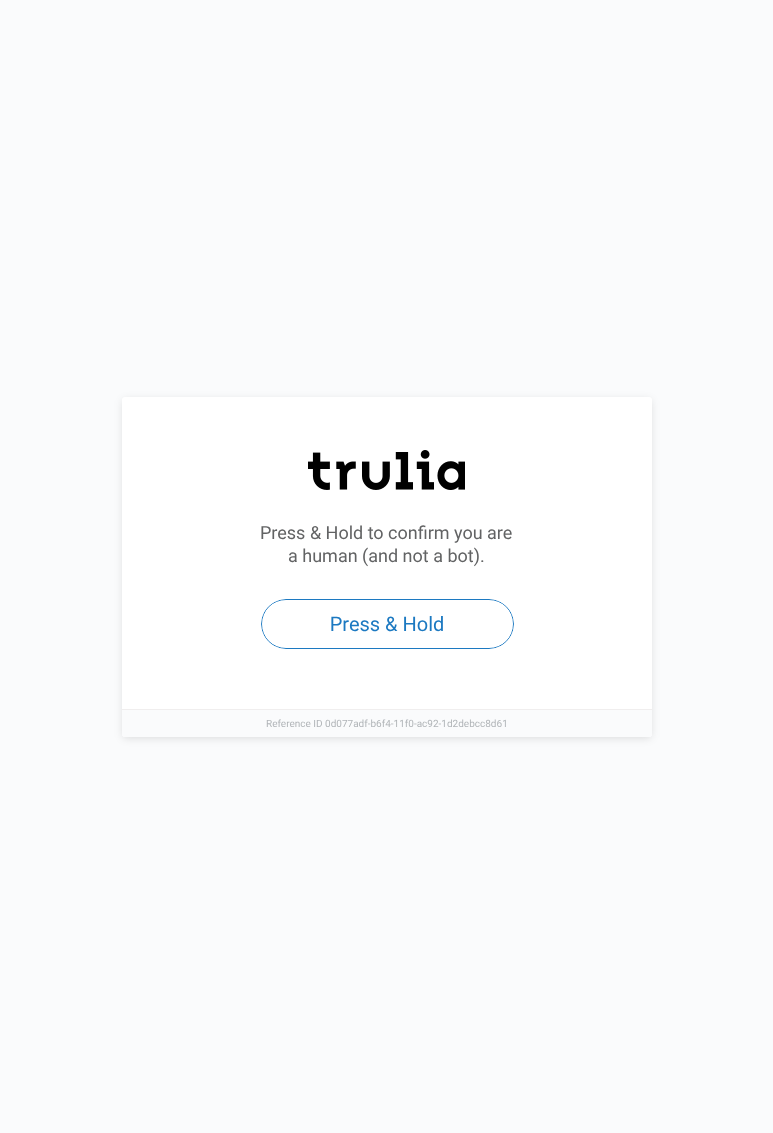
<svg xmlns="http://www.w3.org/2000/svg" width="773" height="1133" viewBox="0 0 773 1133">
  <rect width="100%" height="100%" fill="#fafbfc"/>
  <rect x="123" y="400" width="528" height="338" rx="2" fill="#00000021" filter="blur(4.5px)"/>
  <rect x="122" y="397" width="530" height="340" rx="3" fill="#fff"/>
  <image x="308" y="450" width="157" height="40" href="img/1.png"/>
  <image x="261" y="599" width="253" height="50" href="img/2.png"/>
  <path d="M122 709H652V734C652 735.5 650.5 737 649 737H125C123.5 737 122 735.5 122 734Z" fill="#fafbfc"/>
  <path d="M122 709h530v1H122z" fill="#f0eeee"/>
  <g font-family="Roboto" font-size="18" fill="#626364">
    <text x="260" y="539">Press &amp; Hold to confirm you are</text>
    <text x="288" y="562">a human (and not a bot).</text>
  </g>
  <text x="266" y="727" font-family="Roboto" font-size="10" fill="#b1b5b8">Reference ID 0d077adf-b6f4-11f0-ac92-1d2debcc8d61</text>
</svg>
